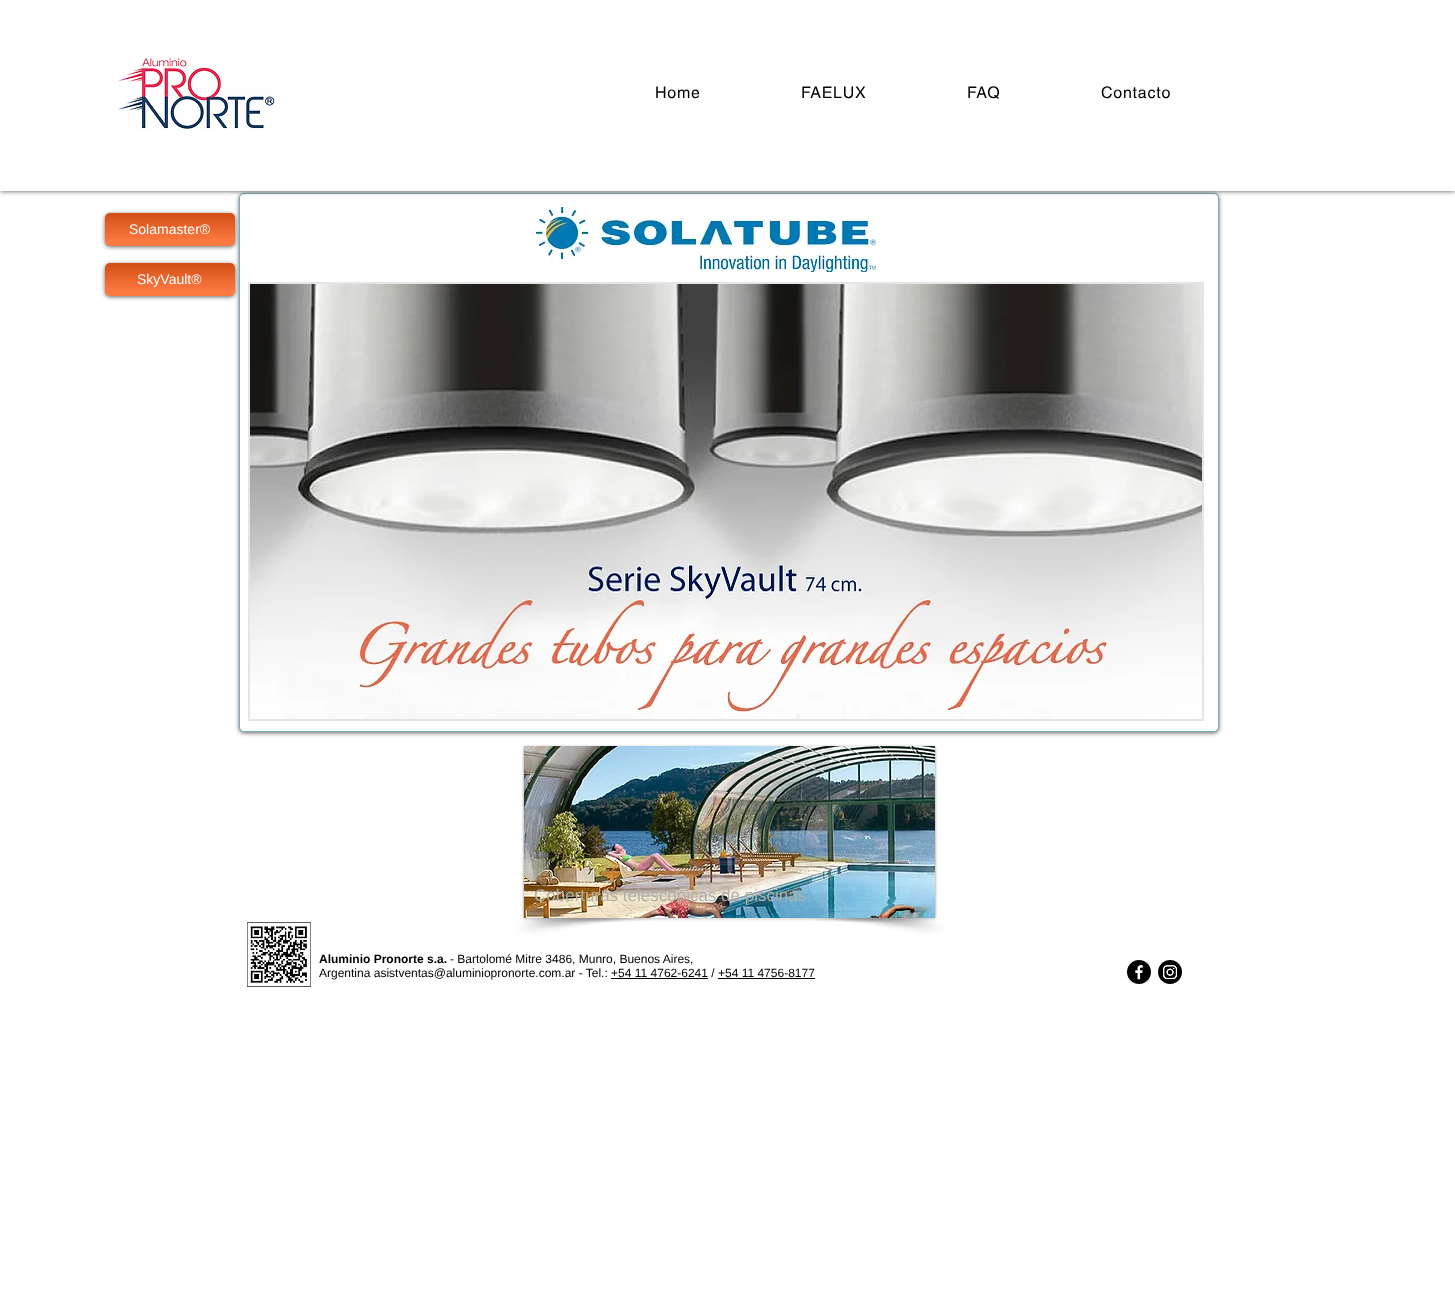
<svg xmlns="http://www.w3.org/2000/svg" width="1455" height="1305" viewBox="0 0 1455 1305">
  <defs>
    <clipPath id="clip1"><path d="M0 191h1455v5H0z"/></clipPath>
  </defs>
  <rect width="100%" height="100%" fill="#fff"/>
  <rect x="105" y="214" width="130" height="33" rx="5" fill="#00000099" filter="blur(2px)"/>
  <rect x="105" y="213" width="130" height="33" rx="5" fill="#fc5b16"/>
  <image x="105" y="213" width="130" height="26" href="img/2.png"/>
  <image x="105" y="213" width="130" height="33" href="img/3.png"/>
  <rect x="105" y="264" width="130" height="33" rx="5" fill="#00000099" filter="blur(2px)"/>
  <rect x="105" y="263" width="130" height="33" rx="5" fill="#fc5b16"/>
  <image x="105" y="263" width="130" height="26" href="img/2.png"/>
  <image x="105" y="263" width="130" height="33" href="img/3.png"/>
  <rect x="239" y="194" width="980" height="539" rx="5" fill="#00000099" filter="blur(2px)"/>
  <rect x="239.5" y="193.5" width="979" height="538" rx="4.5" fill="#fff" stroke="#72adbc"/>
  <g clip-path="url(#clip1)">
    <path d="M0 0h1455v191H0z" fill="#000000b3" filter="blur(2.5px)"/>
  </g>
  <path d="M243 190h972v1H243z" fill="#ffffff99"/>
  <image x="118" y="58" width="157" height="72" href="img/1.png"/>
  <image x="536" y="207" width="340" height="65" href="img/4.png"/>
  <path d="M248 282h956v439H248z" fill="#e5e5e5"/>
  <image x="250" y="284" width="952" height="435" href="img/5.png"/>
  <path d="M524 747h411v172H524z" fill="#00000080" filter="blur(1.5px)"/>
  <image x="524" y="746" width="411" height="172" href="img/6.png"/>
  <image x="515" y="918" width="154" height="18" href="img/7.png"/>
  <image x="790" y="918" width="154" height="18" href="img/8.png"/>
  <path d="M515 918h429v18H515z" fill="#ffffff99"/>
  <image x="247" y="922" width="64" height="65" href="img/9.png"/>
  <path d="M611 978h97v1H611z" fill="#000"/>
  <path d="M718 978h97v1H718z" fill="#000"/>
  <image x="1127" y="960" width="24" height="24" href="img/10.png"/>
  <image x="1158" y="960" width="24" height="24" href="img/11.png"/>
  <g font-family="helvetica" font-size="16" letter-spacing="0.75" fill="#000">
    <text x="655" y="98">Home</text>
    <text x="801" y="98">FAELUX</text>
    <text x="967" y="98">FAQ</text>
    <text x="1101" y="98">Contacto</text>
  </g>
  <g font-family="Liberation Sans" font-size="14" fill="#fff">
    <text x="129" y="234">Solamaster®</text>
    <text x="137" y="284">SkyVault®</text>
  </g>
  <text x="534" y="901" font-family="Liberation Sans" font-size="17" fill="#b0afa3">Coberturas telescópicas de piscinas</text>
  <text x="319" y="963" font-family="Liberation Sans" font-size="12" font-weight="bold" fill="#000">Aluminio Pronorte s.a.</text>
  <g font-family="Liberation Sans" font-size="12" fill="#000">
    <text x="450" y="963">- Bartolomé Mitre 3486, Munro, Buenos Aires,</text>
    <text x="319" y="977">Argentina asistventas@aluminiopronorte.com.ar - Tel.: +54 11 4762-6241 / +54 11 4756-8177</text>
  </g>
</svg>
